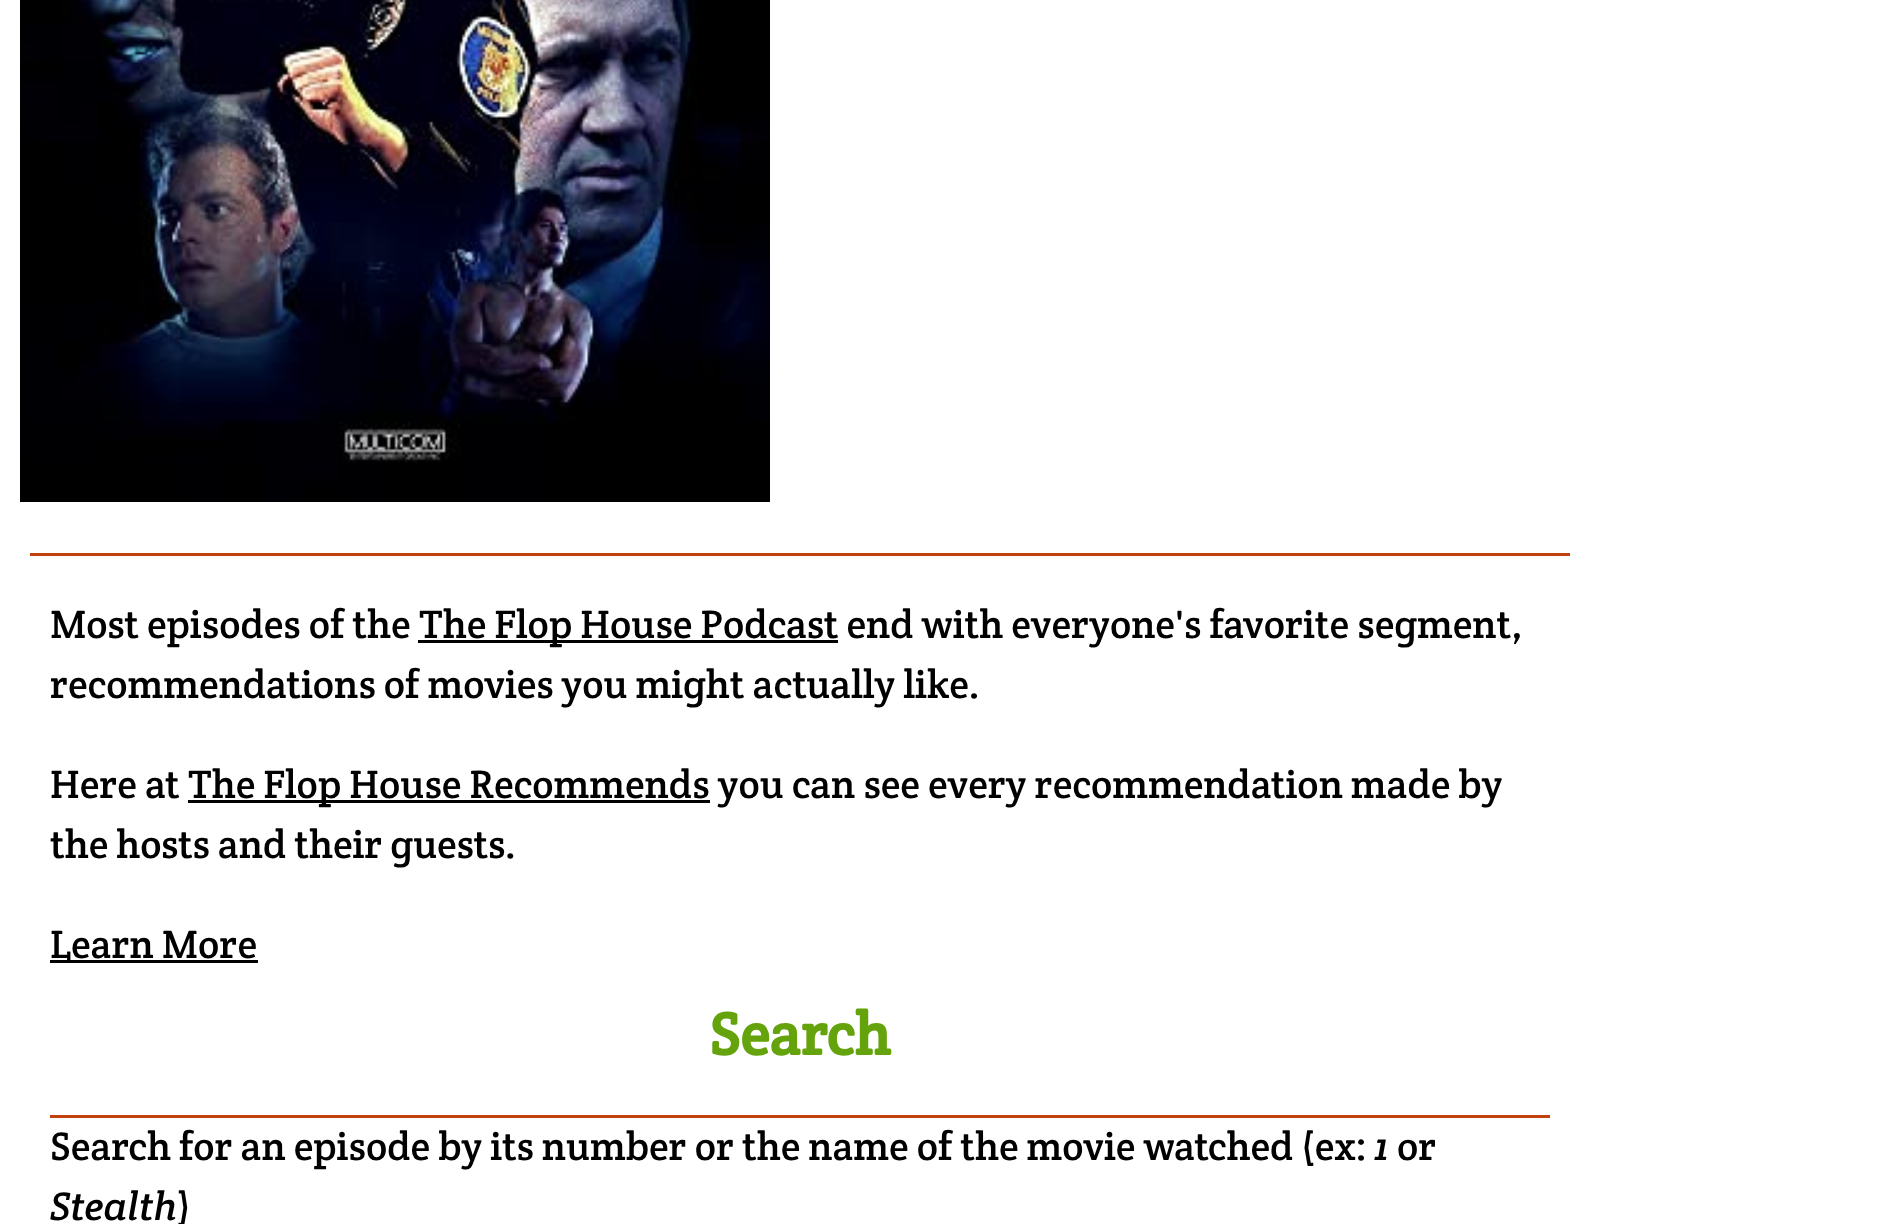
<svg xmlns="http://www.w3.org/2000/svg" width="1890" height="1224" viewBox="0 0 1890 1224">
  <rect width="100%" height="100%" fill="#fff"/>
  <image x="20" y="0" width="750" height="502" href="img/1.png"/>
  <path d="M30 553h1540v3H30z" fill="#c2410c"/>
  <path d="M418 640h420v3H418z" fill="#000"/>
  <path d="M188 800h522v3H188z" fill="#000"/>
  <path d="M50 960h208v3H50z" fill="#000"/>
  <path d="M50 1115h1500v3H50z" fill="#c2410c"/>
  <g font-family="Crete Round" font-size="40" fill="#000">
    <text x="50" y="638">Most episodes of the</text>
    <text x="419" y="638">The Flop House Podcast end with everyone's favorite segment,</text>
    <text x="50" y="698">recommendations of movies you might actually like.</text>
    <text x="50" y="798">Here at</text>
    <text x="188" y="798">The Flop House Recommends you can see every recommendation made by</text>
    <text x="50" y="858">the hosts and their guests.</text>
    <text x="50" y="958">Learn More</text>
  </g>
  <text x="709" y="1055" font-family="Crete Round" font-size="60" font-weight="bold" fill="#65a30d">Search</text>
  <text x="50" y="1160" font-family="Crete Round" font-size="40" fill="#000">Search for an episode by its number or the name of the movie watched (ex:</text>
  <text x="1375" y="1160" font-family="Crete Round" font-size="40" font-style="italic" fill="#000">1</text>
  <text x="1397" y="1160" font-family="Crete Round" font-size="40" fill="#000">or</text>
  <text x="50" y="1220" font-family="Crete Round" font-size="40" font-style="italic" fill="#000">Stealth</text>
  <text x="177" y="1220" font-family="Crete Round" font-size="40" fill="#000">)</text>
</svg>
